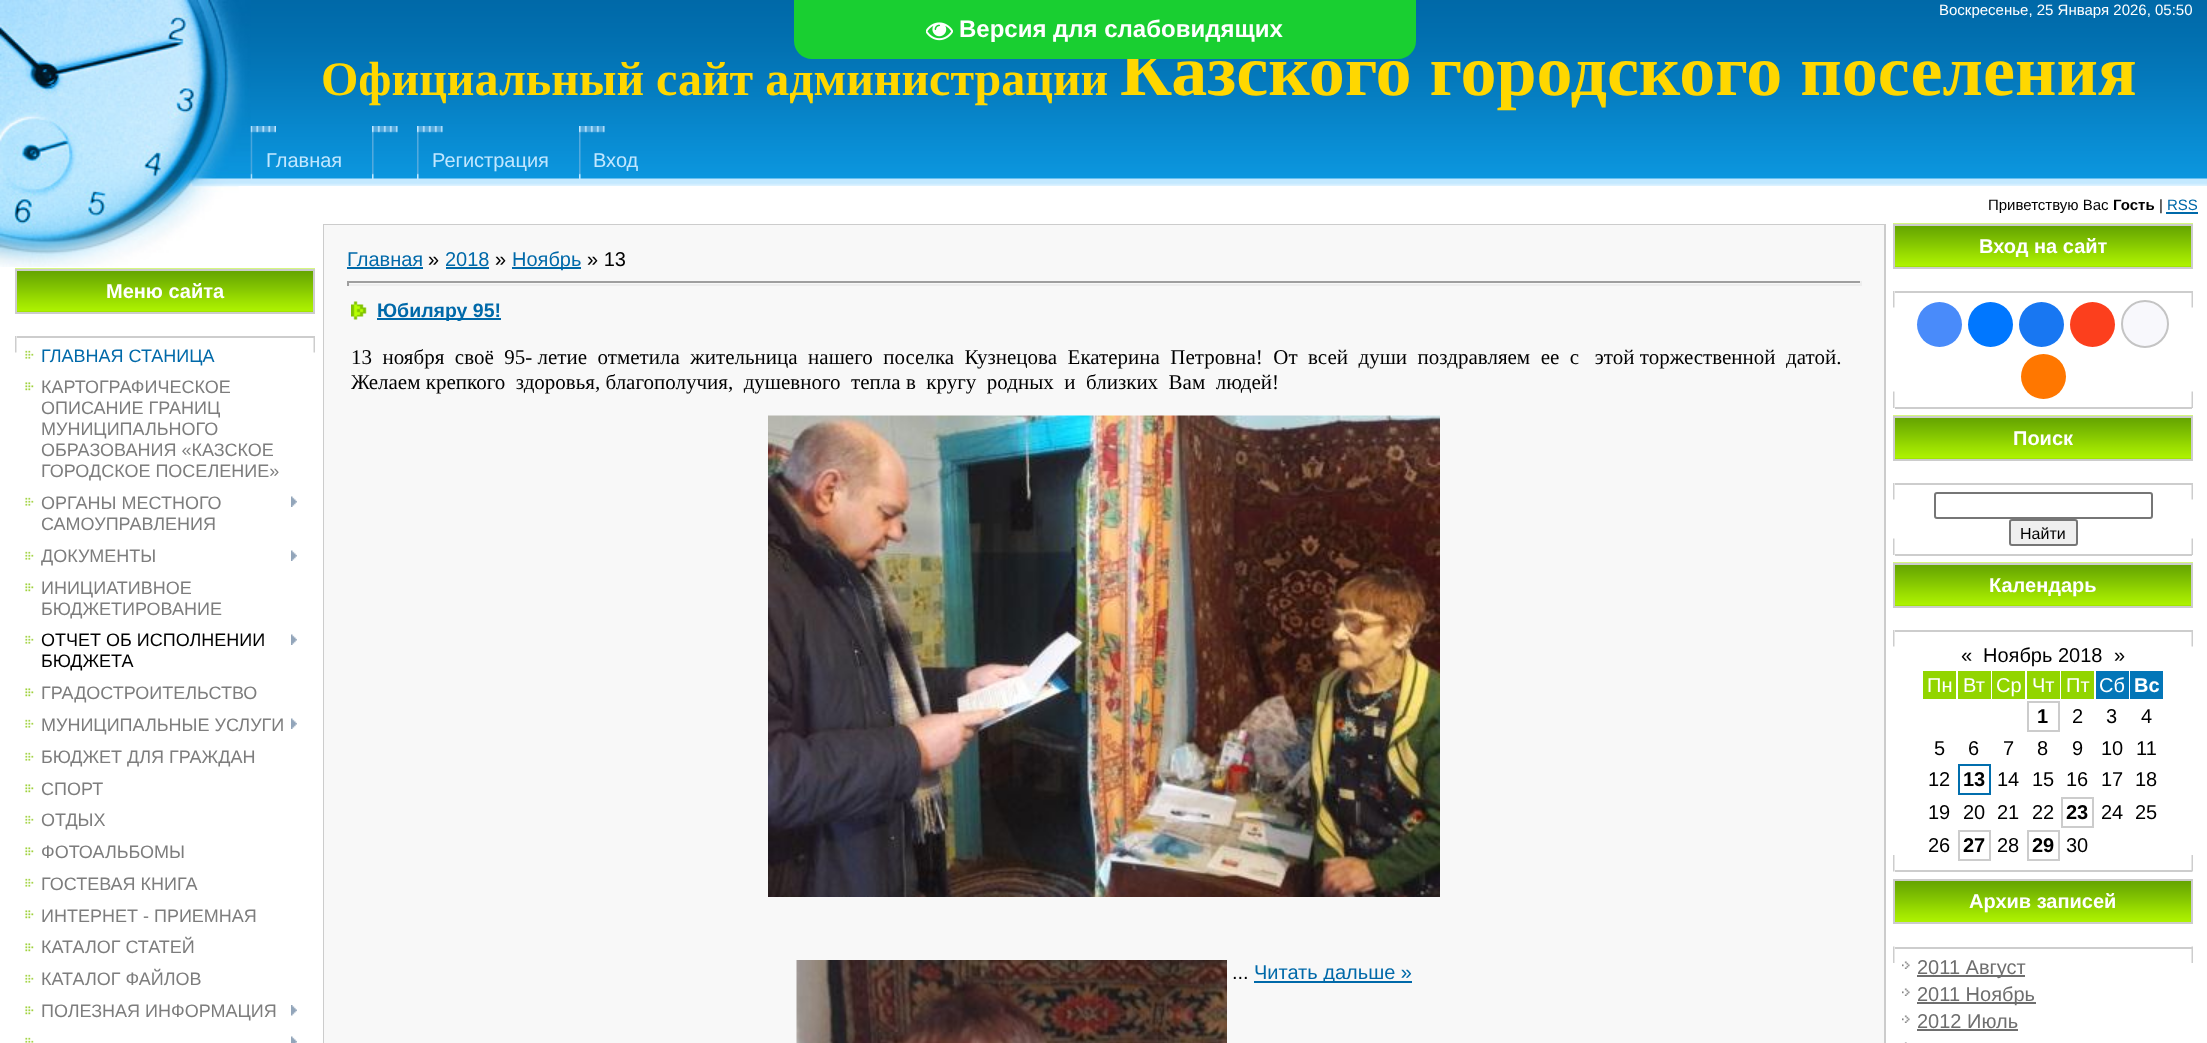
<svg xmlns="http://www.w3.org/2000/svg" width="2207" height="1043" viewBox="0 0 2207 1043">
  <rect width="100%" height="100%" fill="#fff"/>
  <image x="0" y="186" width="239" height="81" href="img/1.png"/>
  <image x="250" y="0" width="1957" height="186" href="img/2.png"/>
  <image x="250" y="126" width="26" height="53" href="img/4.png"/>
  <image x="0" y="0" width="251" height="186" href="img/3.png"/>
  <image x="372" y="126" width="26" height="53" href="img/5.png"/>
  <image x="417" y="126" width="26" height="53" href="img/5.png"/>
  <image x="579" y="126" width="26" height="53" href="img/5.png"/>
  <path d="M2166 212h32v2H2166z" fill="#0069a9"/>
  <image x="15" y="268" width="300" height="44" href="img/6.png"/>
  <path d="M16 270h298v43H16z" fill="none" stroke="#ccc" stroke-width="2"/>
  <image x="15" y="336" width="2" height="17" href="img/7.png"/>
  <path d="M17 336h297v2H17z" fill="#cdcdcd"/>
  <image x="313" y="336" width="2" height="17" href="img/8.png"/>
  <image x="25" y="350" width="9" height="9" href="img/9.png"/>
  <image x="25" y="382" width="9" height="9" href="img/10.png"/>
  <image x="25" y="497" width="9" height="9" href="img/9.png"/>
  <image x="291" y="496" width="6" height="11" href="img/11.png"/>
  <image x="25" y="551" width="9" height="9" href="img/9.png"/>
  <image x="291" y="550" width="6" height="11" href="img/11.png"/>
  <image x="25" y="583" width="9" height="9" href="img/10.png"/>
  <image x="25" y="635" width="9" height="9" href="img/9.png"/>
  <image x="291" y="634" width="6" height="11" href="img/11.png"/>
  <image x="25" y="688" width="9" height="9" href="img/10.png"/>
  <image x="25" y="719" width="9" height="9" href="img/9.png"/>
  <image x="291" y="718" width="6" height="11" href="img/11.png"/>
  <image x="25" y="752" width="9" height="9" href="img/9.png"/>
  <image x="25" y="784" width="9" height="9" href="img/10.png"/>
  <image x="25" y="815" width="9" height="9" href="img/9.png"/>
  <image x="25" y="847" width="9" height="9" href="img/10.png"/>
  <image x="25" y="878" width="9" height="9" href="img/9.png"/>
  <image x="25" y="910" width="9" height="9" href="img/10.png"/>
  <image x="25" y="943" width="9" height="9" href="img/10.png"/>
  <image x="25" y="974" width="9" height="9" href="img/9.png"/>
  <image x="25" y="1006" width="9" height="9" href="img/10.png"/>
  <image x="291" y="1005" width="6" height="11" href="img/12.png"/>
  <image x="25" y="1037" width="9" height="6" href="img/13.png"/>
  <image x="291" y="1036" width="6" height="7" href="img/14.png"/>
  <path d="M324 225h1561v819H324z" fill="none" stroke="#ccc" stroke-width="2"/>
  <path d="M324 225h1560v818H324z" fill="#f8f8f8"/>
  <path d="M347 267h76v2H347z" fill="#0069a9"/>
  <path d="M446 267h43v2H446z" fill="#0069a9"/>
  <path d="M512 267h69v2H512z" fill="#0069a9"/>
  <path d="M347 281h1515v2H347z" fill="#9f9f9f"/>
  <path d="M1860 281h2v5H1860z" fill="#eee"/>
  <path d="M347 284h1515v2H347z" fill="#eee"/>
  <path d="M347 281h2v5H347z" fill="#9f9f9f"/>
  <image x="351" y="301" width="16" height="19" href="img/15.png"/>
  <path d="M377 318h124v2H377z" fill="#0069a9"/>
  <image x="768" y="415" width="672" height="482" href="img/16.png"/>
  <image x="796" y="960" width="431" height="83" href="img/17.png"/>
  <path d="M1254 981h158v2H1254z" fill="#0069a9"/>
  <image x="1893" y="223" width="300" height="44" href="img/18.png"/>
  <path d="M1894 225h298v43H1894z" fill="none" stroke="#ccc" stroke-width="2"/>
  <image x="1893" y="391" width="2" height="17" href="img/19.png"/>
  <image x="1893" y="291" width="2" height="17" href="img/7.png"/>
  <path d="M1895 291h297v2H1895z" fill="#cdcdcd"/>
  <path d="M1895 407h297v2H1895z" fill="#cdcdcd"/>
  <circle cx="1939.5" cy="324.5" r="22.5" fill="#498bfa"/>
  <circle cx="1990.5" cy="324.5" r="22.5" fill="#07f"/>
  <circle cx="2041.5" cy="324.5" r="22.5" fill="#1877f2"/>
  <circle cx="2092.5" cy="324.5" r="22.5" fill="#fc3f1d"/>
  <circle cx="2145" cy="324" r="23" fill="#f8f8fc" stroke="#c4c4c4" stroke-width="2"/>
  <circle cx="2043.5" cy="376.5" r="22.5" fill="#f70"/>
  <image x="2191" y="391" width="2" height="17" href="img/20.png"/>
  <image x="2191" y="291" width="2" height="17" href="img/8.png"/>
  <image x="1893" y="415" width="300" height="44" href="img/21.png"/>
  <path d="M1894 417h298v43H1894z" fill="none" stroke="#ccc" stroke-width="2"/>
  <image x="1893" y="538" width="2" height="17" href="img/19.png"/>
  <image x="1893" y="483" width="2" height="17" href="img/7.png"/>
  <path d="M1895 483h297v2H1895z" fill="#cdcdcd"/>
  <path d="M1895 554h297v2H1895z" fill="#cdcdcd"/>
  <rect x="1935" y="493" width="217" height="25" rx="2" fill="none" stroke="#767676" stroke-width="2"/>
  <rect x="2010" y="520" width="67" height="25" rx="2" fill="#efefef" stroke="#767676" stroke-width="2"/>
  <image x="2191" y="538" width="2" height="17" href="img/20.png"/>
  <image x="2191" y="483" width="2" height="17" href="img/8.png"/>
  <image x="1893" y="562" width="300" height="44" href="img/22.png"/>
  <path d="M1894 564h298v43H1894z" fill="none" stroke="#ccc" stroke-width="2"/>
  <image x="1893" y="855" width="2" height="17" href="img/7.png"/>
  <image x="1893" y="630" width="2" height="17" href="img/7.png"/>
  <path d="M1895 630h297v2H1895z" fill="#cdcdcd"/>
  <path d="M1895 870h297v2H1895z" fill="#cdcdcd"/>
  <path d="M1923 671h33v28H1923z" fill="#92d500"/>
  <path d="M1958 671h33v28H1958z" fill="#92d500"/>
  <path d="M1992 671h33v28H1992z" fill="#92d500"/>
  <path d="M2027 671h33v28H2027z" fill="#92d500"/>
  <path d="M2061 671h33v28H2061z" fill="#92d500"/>
  <path d="M2096 671h33v28H2096z" fill="#0376b8"/>
  <path d="M2130 671h33v28H2130z" fill="#0376b8"/>
  <path d="M2028 702h31v29H2028z" fill="none" stroke="#ccc" stroke-width="2"/>
  <path d="M1959 765h31v29H1959z" fill="none" stroke="#016ead" stroke-width="2"/>
  <path d="M2062 798h31v29H2062z" fill="none" stroke="#ccc" stroke-width="2"/>
  <path d="M1959 831h31v29H1959z" fill="none" stroke="#ccc" stroke-width="2"/>
  <path d="M2028 831h31v29H2028z" fill="none" stroke="#ccc" stroke-width="2"/>
  <image x="2191" y="855" width="2" height="17" href="img/23.png"/>
  <image x="2191" y="630" width="2" height="17" href="img/8.png"/>
  <image x="1895" y="881" width="296" height="41" href="img/24.png"/>
  <path d="M1894 880h298v43H1894z" fill="none" stroke="#ccc" stroke-width="2"/>
  <image x="1893" y="946" width="2" height="17" href="img/19.png"/>
  <path d="M1895 947h297v2H1895z" fill="#cdcdcd"/>
  <image x="2191" y="946" width="2" height="17" href="img/25.png"/>
  <image x="1902" y="961" width="8" height="8" href="img/26.png"/>
  <path d="M1917 975h108v2H1917z" fill="#6e6e6e"/>
  <image x="1902" y="988" width="8" height="8" href="img/26.png"/>
  <path d="M1917 1002h119v2H1917z" fill="#6e6e6e"/>
  <image x="1902" y="1015" width="8" height="8" href="img/26.png"/>
  <path d="M1917 1029h101v2H1917z" fill="#6e6e6e"/>
  <image x="1904" y="1042" width="3" height="1" href="img/27.png"/>
  <text x="1939" y="15" font-family="Liberation Sans" font-size="15" fill="#fff">Воскресенье, 25 Января 2026, 05:50</text>
  <text x="321" y="95" font-family="Liberation Serif" font-size="48" font-weight="bold" fill="#ffd700">Официальный сайт администрации</text>
  <text x="1120" y="95" font-family="Liberation Serif" font-size="72" font-weight="bold" fill="#ffd700">Казского городского поселения</text>
  <g font-family="Liberation Sans" font-size="20" fill="#c1e7ff">
    <text x="266" y="167">Главная</text>
    <text x="432" y="167">Регистрация</text>
    <text x="593" y="167">Вход</text>
  </g>
  <text x="1988" y="210" font-family="Liberation Sans" font-size="15" fill="#000">Приветствую Вас</text>
  <text x="2113" y="210" font-family="Liberation Sans" font-size="15" font-weight="bold" fill="#000">Гость</text>
  <text x="2159" y="210" font-family="Liberation Sans" font-size="15" fill="#000">|</text>
  <text x="2167" y="210" font-family="Liberation Sans" font-size="15" fill="#0069a9">RSS</text>
  <text x="106" y="298" font-family="Liberation Sans" font-size="20" font-weight="bold" fill="#fff">Меню сайта</text>
  <text x="41" y="362" font-family="Liberation Sans" font-size="18" fill="#0069a9">ГЛАВНАЯ СТАНИЦА</text>
  <g font-family="Liberation Sans" font-size="18" fill="#7d7d7d">
    <text x="41" y="393">КАРТОГРАФИЧЕСКОЕ</text>
    <text x="41" y="414">ОПИСАНИЕ ГРАНИЦ</text>
    <text x="41" y="435">МУНИЦИПАЛЬНОГО</text>
    <text x="41" y="456">ОБРАЗОВАНИЯ «КАЗСКОЕ</text>
    <text x="41" y="477">ГОРОДСКОЕ ПОСЕЛЕНИЕ»</text>
    <text x="41" y="509">ОРГАНЫ МЕСТНОГО</text>
    <text x="41" y="530">САМОУПРАВЛЕНИЯ</text>
    <text x="41" y="562">ДОКУМЕНТЫ</text>
    <text x="41" y="594">ИНИЦИАТИВНОЕ</text>
    <text x="41" y="615">БЮДЖЕТИРОВАНИЕ</text>
  </g>
  <g font-family="Liberation Sans" font-size="18" fill="#000">
    <text x="41" y="646">ОТЧЕТ ОБ ИСПОЛНЕНИИ</text>
    <text x="41" y="667">БЮДЖЕТА</text>
  </g>
  <g font-family="Liberation Sans" font-size="18" fill="#7d7d7d">
    <text x="41" y="699">ГРАДОСТРОИТЕЛЬСТВО</text>
    <text x="41" y="731">МУНИЦИПАЛЬНЫЕ УСЛУГИ</text>
    <text x="41" y="763">БЮДЖЕТ ДЛЯ ГРАЖДАН</text>
    <text x="41" y="795">СПОРТ</text>
    <text x="41" y="826">ОТДЫХ</text>
    <text x="41" y="858">ФОТОАЛЬБОМЫ</text>
    <text x="41" y="890">ГОСТЕВАЯ КНИГА</text>
    <text x="41" y="922">ИНТЕРНЕТ - ПРИЕМНАЯ</text>
    <text x="41" y="953">КАТАЛОГ СТАТЕЙ</text>
    <text x="41" y="985">КАТАЛОГ ФАЙЛОВ</text>
    <text x="41" y="1017">ПОЛЕЗНАЯ ИНФОРМАЦИЯ</text>
  </g>
  <text x="347" y="266" font-family="Liberation Sans" font-size="20" fill="#0069a9">Главная</text>
  <text x="428" y="266" font-family="Liberation Sans" font-size="20" fill="#000">»</text>
  <text x="445" y="266" font-family="Liberation Sans" font-size="20" fill="#0069a9">2018</text>
  <text x="495" y="266" font-family="Liberation Sans" font-size="20" fill="#000">»</text>
  <text x="512" y="266" font-family="Liberation Sans" font-size="20" fill="#0069a9">Ноябрь</text>
  <text x="587" y="266" font-family="Liberation Sans" font-size="20" fill="#000">» 13</text>
  <text x="377" y="317" font-family="Liberation Sans" font-size="19.5" font-weight="bold" fill="#0069a9">Юбиляру 95!</text>
  <g font-family="Liberation Serif" font-size="21" fill="#000">
    <text x="351" y="364" xml:space="preserve">13  ноября  своё  95- летие  отметила  жительница  нашего  поселка  Кузнецова  Екатерина  Петровна!  От  всей  души  поздравляем  ее  с   этой торжественной  датой.</text>
    <text x="351" y="389" xml:space="preserve">Желаем крепкого  здоровья, благополучия,  душевного  тепла в  кругу  родных  и  близких  Вам  людей!</text>
  </g>
  <text x="1232" y="979" font-family="Liberation Sans" font-size="20" fill="#000">...</text>
  <text x="1254" y="979" font-family="Liberation Sans" font-size="20" fill="#0069a9">Читать дальше »</text>
  <g font-family="Liberation Sans" font-size="20" font-weight="bold" fill="#fff">
    <text x="1979" y="253">Вход на сайт</text>
    <text x="2013" y="445">Поиск</text>
  </g>
  <text x="2020" y="539" font-family="Liberation Sans" font-size="16" fill="#000">Найти</text>
  <text x="1989" y="592" font-family="Liberation Sans" font-size="20" font-weight="bold" fill="#fff">Календарь</text>
  <g font-family="Liberation Sans" font-size="20" fill="#000">
    <text x="1961" y="662">«</text>
    <text x="1983" y="662">Ноябрь 2018</text>
    <text x="2114" y="662">»</text>
  </g>
  <g font-family="Liberation Sans" font-size="20" fill="#fff">
    <text x="1927" y="692">Пн</text>
    <text x="1963" y="692">Вт</text>
    <text x="1996" y="692">Ср</text>
    <text x="2032" y="692">Чт</text>
    <text x="2066" y="692">Пт</text>
    <text x="2099" y="692">Сб</text>
  </g>
  <text x="2134" y="692" font-family="Liberation Sans" font-size="20" font-weight="bold" fill="#fff">Вс</text>
  <text x="2037" y="723" font-family="Liberation Sans" font-size="20" font-weight="bold" fill="#000">1</text>
  <g font-family="Liberation Sans" font-size="20" fill="#000">
    <text x="2072" y="723">2</text>
    <text x="2106" y="723">3</text>
    <text x="2141" y="723">4</text>
    <text x="1934" y="755">5</text>
    <text x="1968" y="755">6</text>
    <text x="2003" y="755">7</text>
    <text x="2037" y="755">8</text>
    <text x="2072" y="755">9</text>
    <text x="2101" y="755">10</text>
    <text x="2136" y="755">11</text>
    <text x="1928" y="786">12</text>
  </g>
  <text x="1963" y="786" font-family="Liberation Sans" font-size="20" font-weight="bold" fill="#000">13</text>
  <g font-family="Liberation Sans" font-size="20" fill="#000">
    <text x="1997" y="786">14</text>
    <text x="2032" y="786">15</text>
    <text x="2066" y="786">16</text>
    <text x="2101" y="786">17</text>
    <text x="2135" y="786">18</text>
    <text x="1928" y="819">19</text>
    <text x="1963" y="819">20</text>
    <text x="1997" y="819">21</text>
    <text x="2032" y="819">22</text>
  </g>
  <text x="2066" y="819" font-family="Liberation Sans" font-size="20" font-weight="bold" fill="#000">23</text>
  <g font-family="Liberation Sans" font-size="20" fill="#000">
    <text x="2101" y="819">24</text>
    <text x="2135" y="819">25</text>
    <text x="1928" y="852">26</text>
  </g>
  <text x="1963" y="852" font-family="Liberation Sans" font-size="20" font-weight="bold" fill="#000">27</text>
  <text x="1997" y="852" font-family="Liberation Sans" font-size="20" fill="#000">28</text>
  <text x="2032" y="852" font-family="Liberation Sans" font-size="20" font-weight="bold" fill="#000">29</text>
  <text x="2066" y="852" font-family="Liberation Sans" font-size="20" fill="#000">30</text>
  <text x="1969" y="908" font-family="Liberation Sans" font-size="20" font-weight="bold" fill="#fff">Архив записей</text>
  <g font-family="Liberation Sans" font-size="20" fill="#6e6e6e">
    <text x="1917" y="974">2011 Август</text>
    <text x="1917" y="1001">2011 Ноябрь</text>
    <text x="1917" y="1028">2012 Июль</text>
  </g>
  <path d="M794 0H1416V41C1416 51 1408 59 1398 59H812C802 59 794 51 794 41Z" fill="#19cf31"/>
  <image x="926" y="22" width="27" height="19" href="img/28.png"/>
  <text x="959" y="37" font-family="Liberation Sans" font-size="24" font-weight="bold" fill="#fff">Версия для слабовидящих</text>
</svg>
